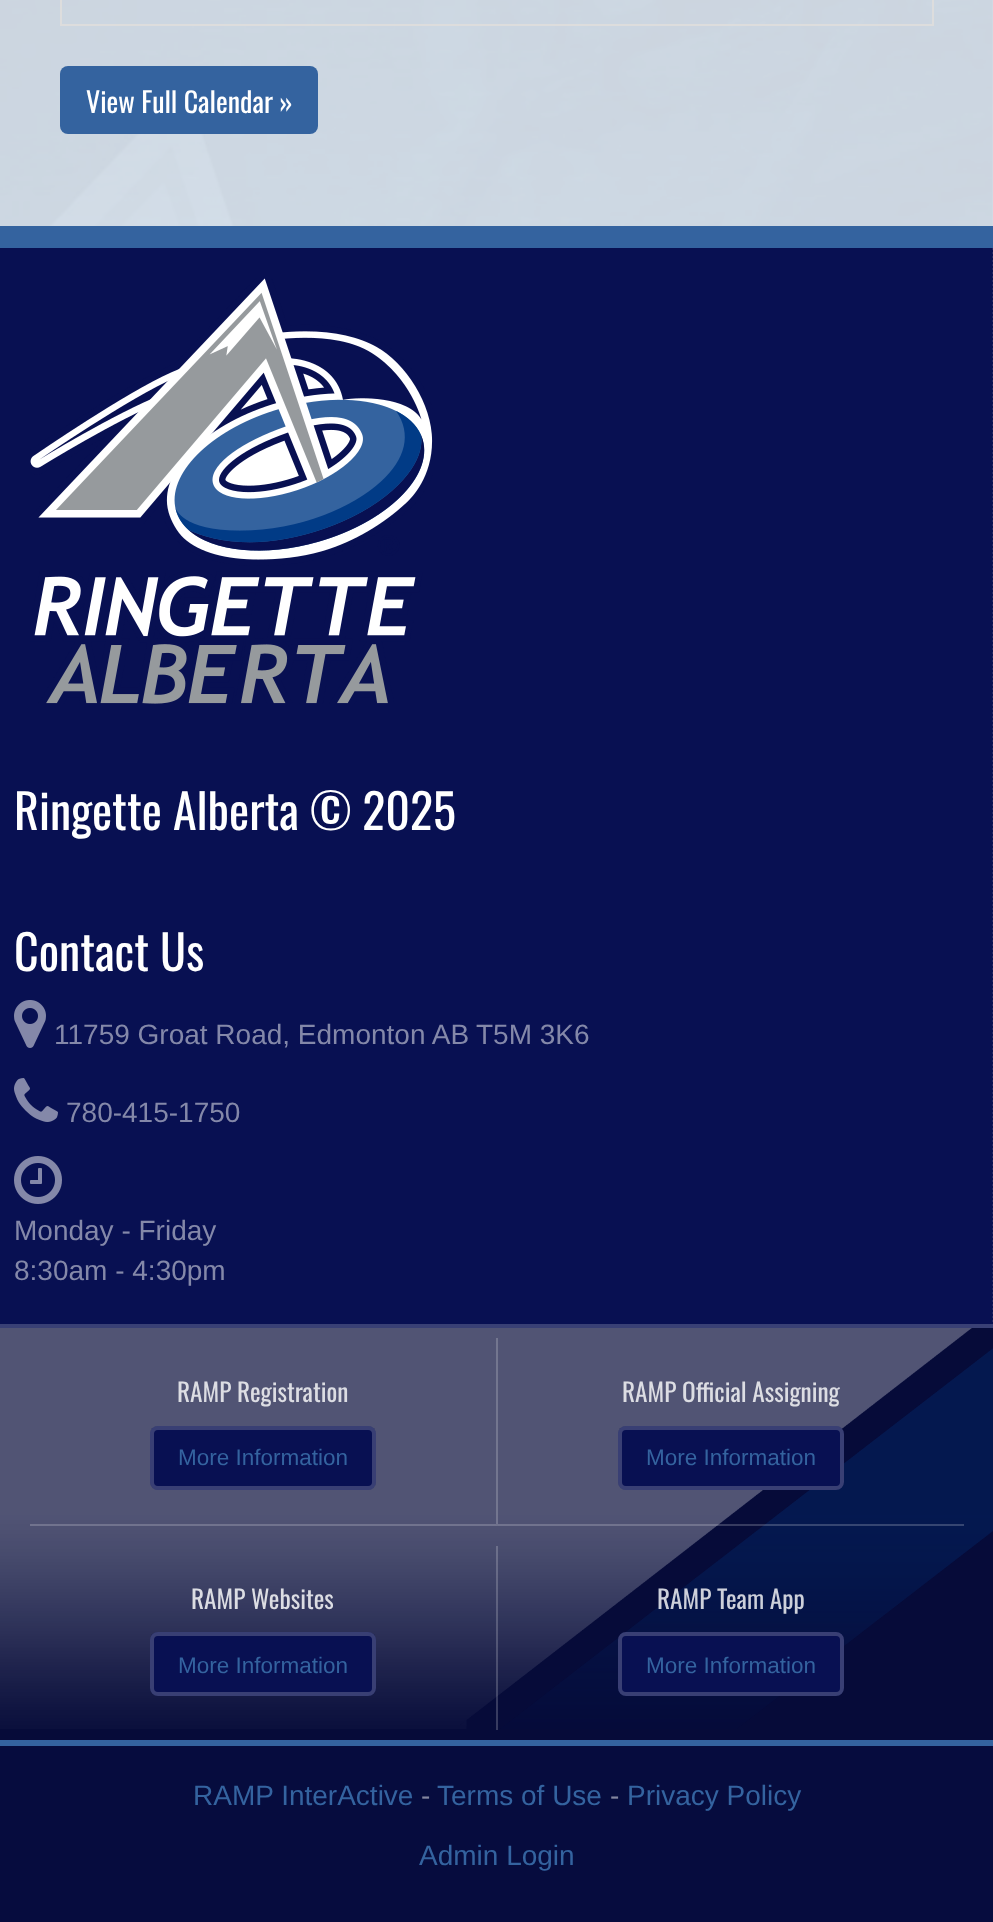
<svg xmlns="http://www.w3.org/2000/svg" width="993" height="1922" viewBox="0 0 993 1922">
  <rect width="100%" height="100%" fill="#fff"/>
  <image x="0" y="0" width="993" height="226" href="img/1.png"/>
  <path d="M0 0h993v226H0z" fill="#ffffffcc"/>
  <path d="M61 -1h872v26H61z" fill="none" stroke="#ddd" stroke-width="2"/>
  <rect x="60" y="66" width="258" height="68" rx="8" fill="#34639f"/>
  <path d="M0 226h993v22H0z" fill="#34639f"/>
  <path d="M0 248h993v1076H0z" fill="#081052"/>
  <path d="M993 248V728" fill="none" stroke="#212863" stroke-width="2" stroke-dasharray="2 2"/>
  <image x="30" y="278" width="403" height="426" href="img/2.png"/>
  <path d="M993 728V868" fill="none" stroke="#212863" stroke-width="2" stroke-dasharray="2 2"/>
  <path d="M993 868V1324" fill="none" stroke="#212863" stroke-width="2" stroke-dasharray="2 2"/>
  <image x="14" y="1000" width="32" height="48" href="img/3.png"/>
  <image x="14" y="1078" width="44" height="44" href="img/4.png"/>
  <image x="14" y="1156" width="48" height="48" href="img/5.png"/>
  <path d="M0 1324h993v4H0z" fill="#394075"/>
  <path d="M0 1328h993v412H0z" fill="#060b39"/>
  <image x="0" y="1328" width="993" height="401" href="img/6.png"/>
  <path d="M498 1338V1526L496 1524V1338Z" fill="#ffffff33"/>
  <path d="M498 1526H30V1524H496Z" fill="#ffffff33"/>
  <rect x="150" y="1426" width="226" height="64" rx="8" fill="#081052"/>
  <rect x="152" y="1428" width="222" height="60" rx="6" fill="none" stroke="#ffffff33" stroke-width="4"/>
  <path d="M498 1524h466v2H498z" fill="#ffffff33"/>
  <rect x="618" y="1426" width="226" height="64" rx="8" fill="#081052"/>
  <rect x="620" y="1428" width="222" height="60" rx="6" fill="none" stroke="#ffffff33" stroke-width="4"/>
  <path d="M496 1546h2v184H496z" fill="#ffffff33"/>
  <rect x="150" y="1632" width="226" height="64" rx="8" fill="#081052"/>
  <rect x="152" y="1634" width="222" height="60" rx="6" fill="none" stroke="#ffffff33" stroke-width="4"/>
  <rect x="618" y="1632" width="226" height="64" rx="8" fill="#081052"/>
  <rect x="620" y="1634" width="222" height="60" rx="6" fill="none" stroke="#ffffff33" stroke-width="4"/>
  <path d="M0 1740h993v6H0z" fill="#34639f"/>
  <path d="M0 1746h993v176H0z" fill="#060c3e"/>
  <text x="86" y="113" font-family="Oswald" font-size="28" fill="#fff">View Full Calendar »</text>
  <g font-family="Oswald" font-size="48" fill="#fff">
    <text x="14" y="830">Ringette Alberta © 2025</text>
    <text x="14" y="971">Contact Us</text>
  </g>
  <g font-family="Liberation Sans" font-size="28" fill="#8488a9">
    <text x="54" y="1044">11759 Groat Road, Edmonton AB</text>
    <text x="476" y="1044">T5M 3K6</text>
    <text x="66" y="1122">780-415-1750</text>
    <text x="14" y="1240">Monday - Friday</text>
    <text x="14" y="1280">8:30am - 4:30pm</text>
  </g>
  <text x="177" y="1402" font-family="Oswald" font-size="25.25" fill="#dcdde3">RAMP Registration</text>
  <text x="178" y="1465" font-family="Liberation Sans" font-size="22.5" fill="#34639f">More Information</text>
  <text x="622" y="1402" font-family="Oswald" font-size="25.25" fill="#dcdde3">RAMP Official Assigning</text>
  <text x="646" y="1465" font-family="Liberation Sans" font-size="22.5" fill="#34639f">More Information</text>
  <text x="191" y="1609" font-family="Oswald" font-size="25.25" fill="#dcdde3">RAMP Websites</text>
  <text x="178" y="1673" font-family="Liberation Sans" font-size="22.5" fill="#34639f">More Information</text>
  <text x="657" y="1609" font-family="Oswald" font-size="25.25" fill="#cdd0da">RAMP Team App</text>
  <text x="646" y="1673" font-family="Liberation Sans" font-size="22.5" fill="#34639f">More Information</text>
  <text x="193" y="1805" font-family="Liberation Sans" font-size="28" fill="#34639f">RAMP InterActive</text>
  <text x="421" y="1805" font-family="Liberation Sans" font-size="28" fill="#83869f">-</text>
  <text x="437" y="1805" font-family="Liberation Sans" font-size="28" fill="#34639f">Terms of Use</text>
  <text x="610" y="1805" font-family="Liberation Sans" font-size="28" fill="#83869f">-</text>
  <g font-family="Liberation Sans" font-size="28" fill="#34639f">
    <text x="627" y="1805">Privacy Policy</text>
    <text x="419" y="1865">Admin Login</text>
  </g>
</svg>
